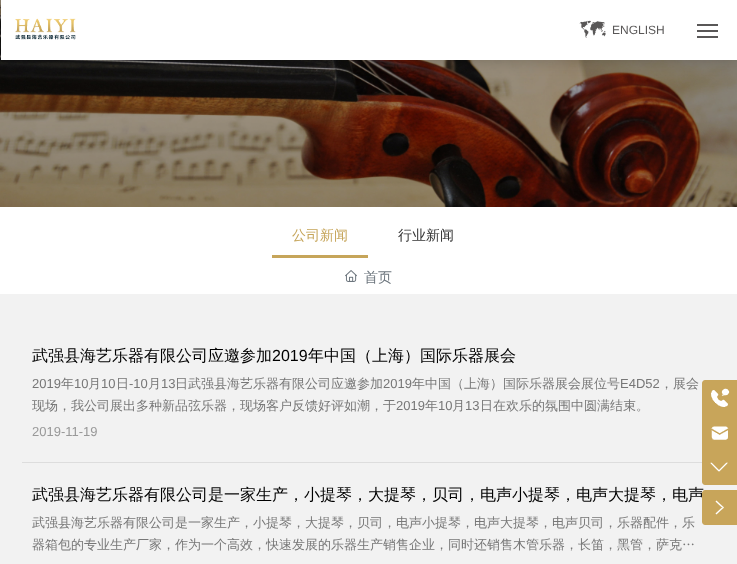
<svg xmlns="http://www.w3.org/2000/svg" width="737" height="564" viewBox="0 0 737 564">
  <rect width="100%" height="100%" fill="#fff"/>
  <image x="0" y="0" width="737" height="207" href="img/1.png"/>
  <path d="M1 0h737v60H1z" fill="#00000033" filter="blur(7.5px)"/>
  <path d="M1 0h736v60H1z" fill="#fff"/>
  <image x="15" y="18" width="61" height="22" href="img/2.png"/>
  <image x="579" y="20" width="27" height="18" href="img/3.png"/>
  <path d="M697 24h21v2H697z" fill="#595757"/>
  <path d="M697 30h21v2H697z" fill="#595757"/>
  <path d="M697 36h21v2H697z" fill="#595757"/>
  <path d="M272 255h96v3H272z" fill="#c6a55a"/>
  <image x="345" y="270" width="12" height="12" href="img/4.png"/>
  <path d="M0 294h737v270H0z" fill="#f2f2f2"/>
  <path d="M22 462h680v1H22z" fill="#ddd"/>
  <path d="M705 380H737V485H705C703.5 485 702 483.5 702 482V383C702 381.5 703.5 380 705 380Z" fill="#c8a55a"/>
  <image x="711" y="388" width="19" height="19" href="img/5.png"/>
  <image x="711" y="426" width="18" height="14" href="img/6.png"/>
  <image x="710" y="462" width="18" height="10" href="img/7.png"/>
  <text x="612" y="34" font-family="Liberation Sans" font-size="12" fill="#595757">ENGLISH</text>
  <text x="292" y="240" font-family="WenQuanYi Zen Hei" font-size="14" font-weight="500" fill="#c6a55a">公司新闻</text>
  <text x="398" y="240" font-family="WenQuanYi Zen Hei" font-size="14" font-weight="500" fill="#333">行业新闻</text>
  <text x="364" y="282" font-family="WenQuanYi Zen Hei" font-size="14" font-weight="500" fill="#6c757d">首页</text>
  <text x="32" y="361" font-family="WenQuanYi Zen Hei" font-size="16" font-weight="500" fill="#000">武强县海艺乐器有限公司应邀参加</text>
  <text x="272" y="361" font-family="Liberation Sans" font-size="16" fill="#000">2019</text>
  <text x="308" y="361" font-family="WenQuanYi Zen Hei" font-size="16" font-weight="500" fill="#000">年中国（上海）国际乐器展会</text>
  <text x="32" y="388" font-family="Liberation Sans" font-size="13" fill="#777">2019</text>
  <text x="61" y="388" font-family="WenQuanYi Zen Hei" font-size="13" font-weight="500" fill="#777">年</text>
  <text x="74" y="388" font-family="Liberation Sans" font-size="13" fill="#777">10</text>
  <text x="88" y="388" font-family="WenQuanYi Zen Hei" font-size="13" font-weight="500" fill="#777">月</text>
  <text x="101" y="388" font-family="Liberation Sans" font-size="13" fill="#777">10</text>
  <text x="116" y="388" font-family="WenQuanYi Zen Hei" font-size="13" font-weight="500" fill="#777">日</text>
  <text x="129" y="388" font-family="Liberation Sans" font-size="13" fill="#777">-10</text>
  <text x="148" y="388" font-family="WenQuanYi Zen Hei" font-size="13" font-weight="500" fill="#777">月</text>
  <text x="161" y="388" font-family="Liberation Sans" font-size="13" fill="#777">13</text>
  <text x="175" y="388" font-family="WenQuanYi Zen Hei" font-size="13" font-weight="500" fill="#777">日武强县海艺乐器有限公司应邀参加</text>
  <text x="383" y="388" font-family="Liberation Sans" font-size="13" fill="#777">2019</text>
  <text x="412" y="388" font-family="WenQuanYi Zen Hei" font-size="13" font-weight="500" fill="#777">年中国（上海）国际乐器展会展位号</text>
  <text x="620" y="388" font-family="Liberation Sans" font-size="13" fill="#777">E4D52</text>
  <g font-family="WenQuanYi Zen Hei" font-size="13" font-weight="500" fill="#777">
    <text x="660" y="388">，展会</text>
    <text x="32" y="410">现场，我公司展出多种新品弦乐器，现场客户反馈好评如潮，于</text>
  </g>
  <text x="396" y="410" font-family="Liberation Sans" font-size="13" fill="#777">2019</text>
  <text x="425" y="410" font-family="WenQuanYi Zen Hei" font-size="13" font-weight="500" fill="#777">年</text>
  <text x="438" y="410" font-family="Liberation Sans" font-size="13" fill="#777">10</text>
  <text x="452" y="410" font-family="WenQuanYi Zen Hei" font-size="13" font-weight="500" fill="#777">月</text>
  <text x="465" y="410" font-family="Liberation Sans" font-size="13" fill="#777">13</text>
  <text x="480" y="410" font-family="WenQuanYi Zen Hei" font-size="13" font-weight="500" fill="#777">日在欢乐的氛围中圆满结束。</text>
  <text x="32" y="436" font-family="Liberation Sans" font-size="13" fill="#999">2019-11-19</text>
  <text x="32" y="500" font-family="WenQuanYi Zen Hei" font-size="16" font-weight="500" fill="#000">武强县海艺乐器有限公司是一家生产，小提琴，大提琴，贝司，电声小提琴，电声大提琴，电声</text>
  <g font-family="WenQuanYi Zen Hei" font-size="13" font-weight="500" fill="#777">
    <text x="32" y="527">武强县海艺乐器有限公司是一家生产，小提琴，大提琴，贝司，电声小提琴，电声大提琴，电声贝司，乐器配件，乐</text>
    <text x="32" y="549">器箱包的专业生产厂家，作为一个高效，快速发展的乐器生产销售企业，同时还销售木管乐器，长笛，黑管，萨克…</text>
  </g>
  <path d="M705 490H737V525H705C703.5 525 702 523.5 702 522V493C702 491.5 703.5 490 705 490Z" fill="#c8a55a"/>
  <image x="715" y="500" width="9" height="15" href="img/8.png"/>
</svg>
